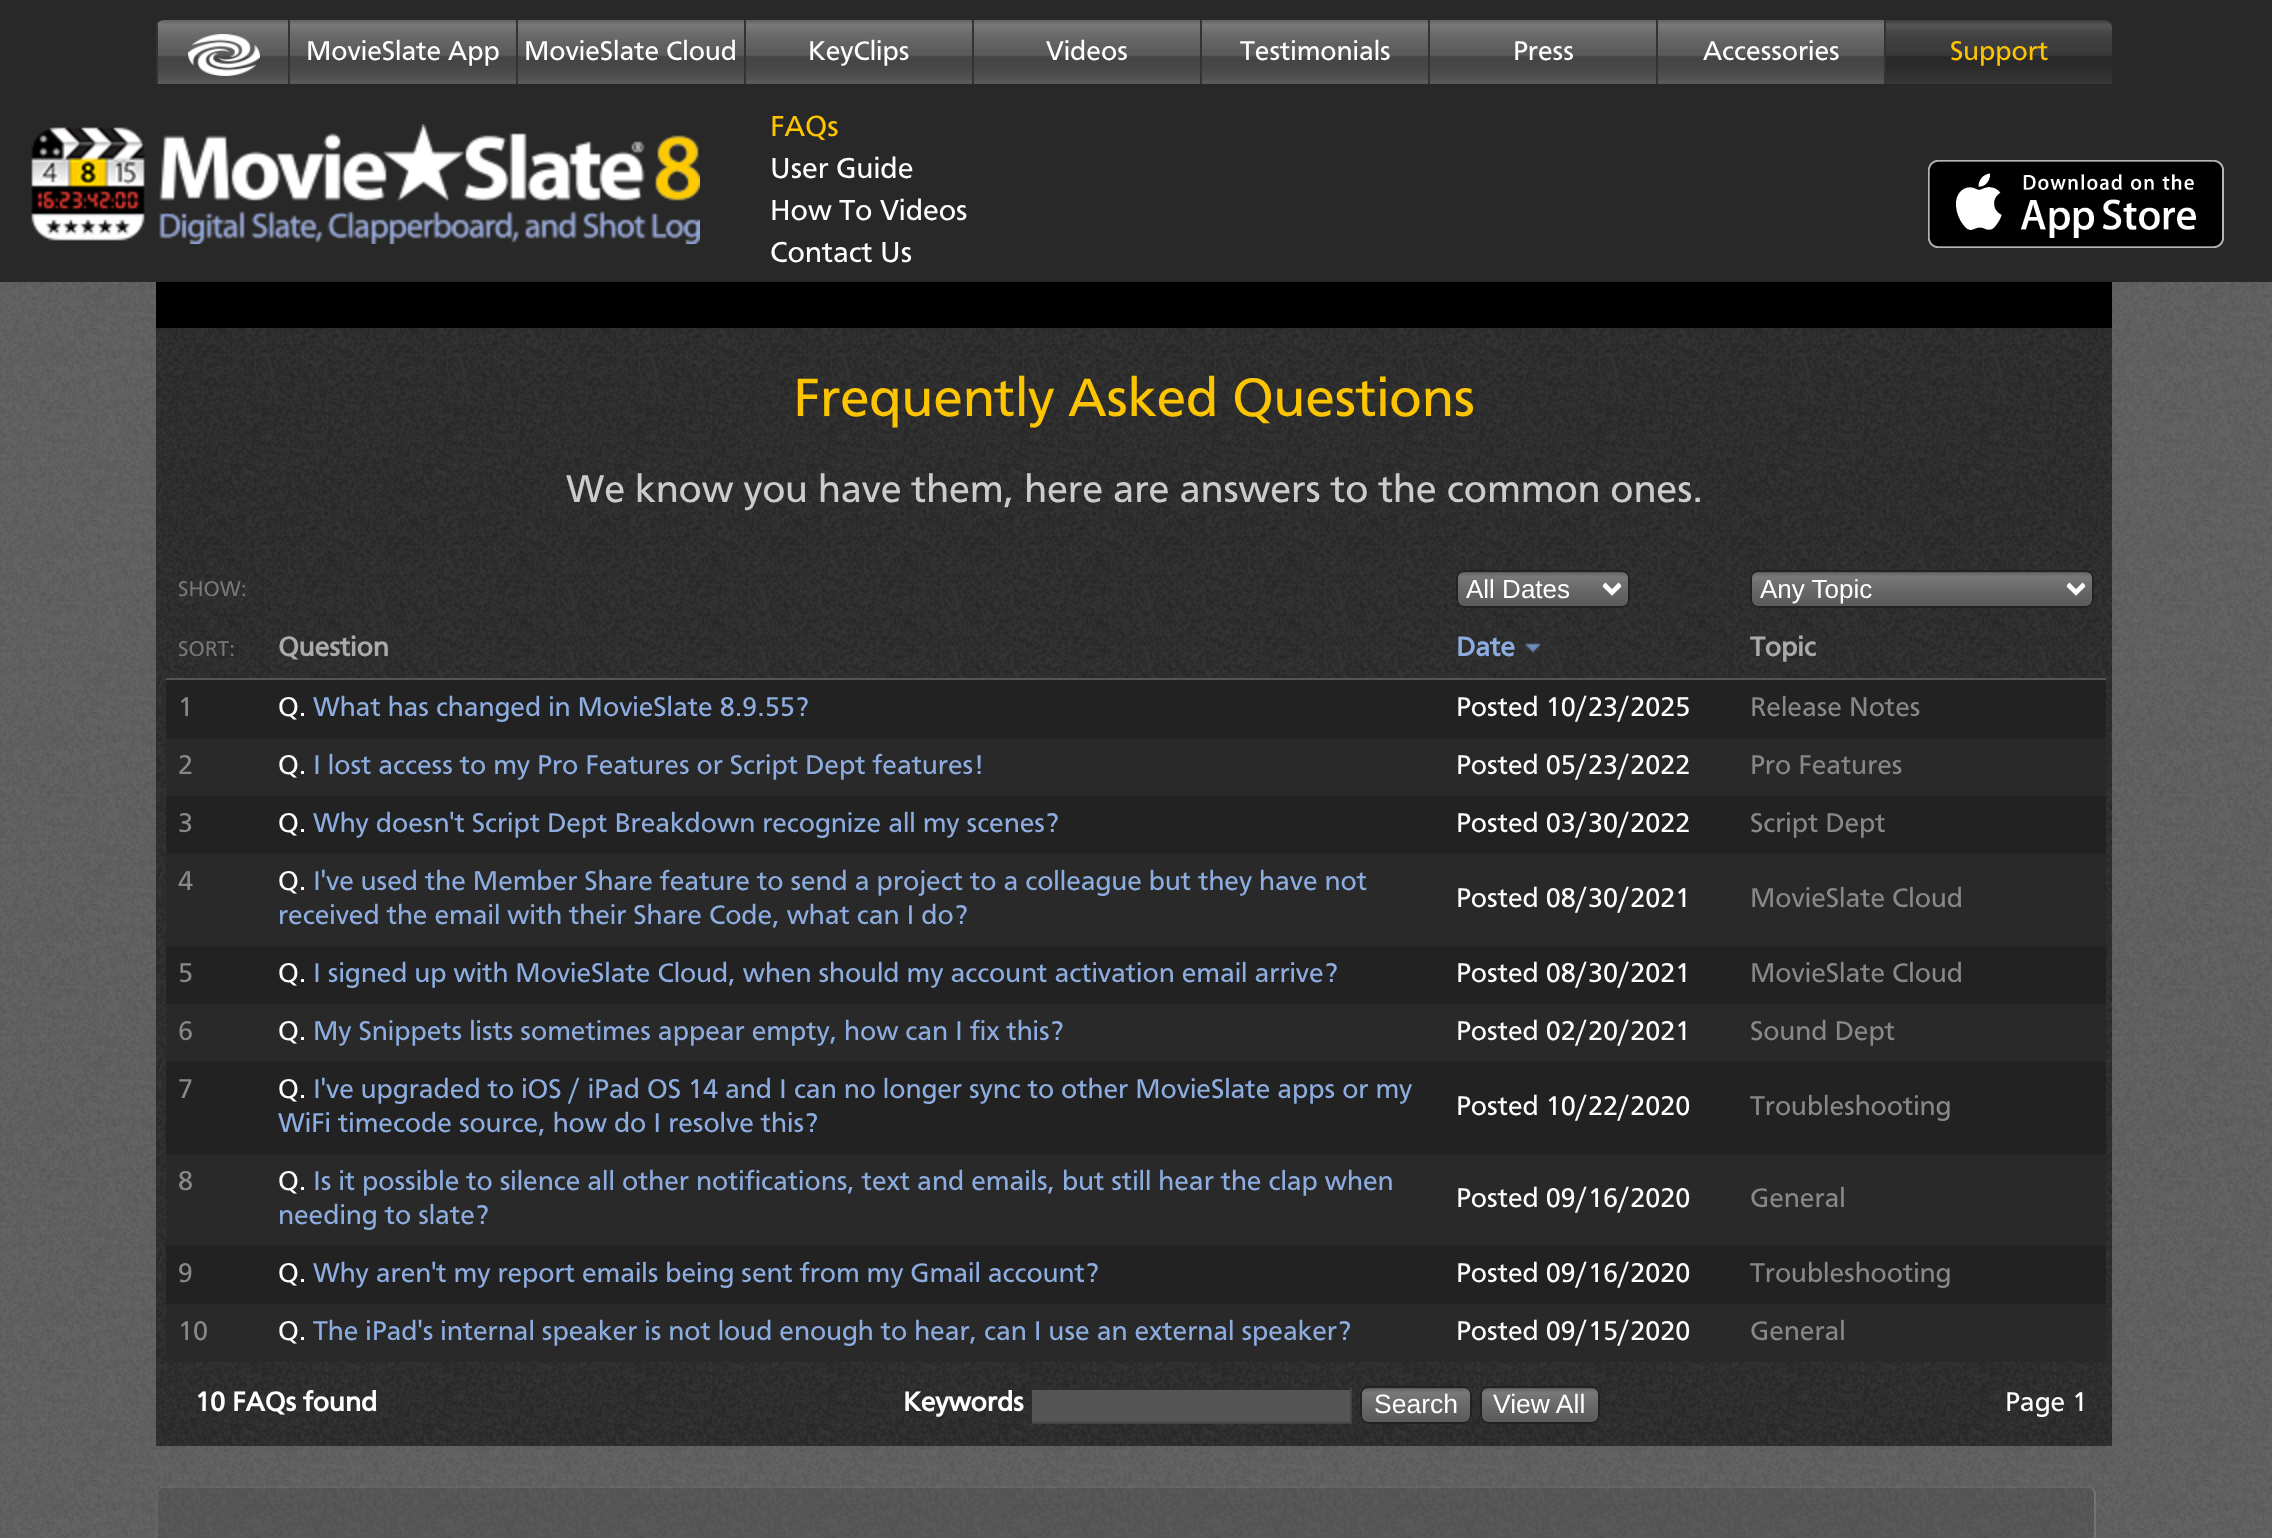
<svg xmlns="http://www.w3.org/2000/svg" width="2272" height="1538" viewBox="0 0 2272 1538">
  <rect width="100%" height="100%" fill="#fff"/>
  <image x="0" y="282" width="2272" height="1256" href="img/1.png"/>
  <path d="M0 0h2272v282H0z" fill="#282828"/>
  <image x="157" y="20" width="131" height="64" href="img/2.png"/>
  <path d="M156 24h2v64H156z" fill="#333"/>
  <image x="188" y="34" width="72" height="42" href="img/3.png"/>
  <image x="290" y="20" width="226" height="64" href="img/4.png"/>
  <path d="M288 20h2v72H288z" fill="#333"/>
  <image x="518" y="20" width="226" height="64" href="img/4.png"/>
  <path d="M516 20h2v72H516z" fill="#333"/>
  <image x="746" y="20" width="226" height="64" href="img/4.png"/>
  <path d="M744 20h2v72H744z" fill="#333"/>
  <image x="974" y="20" width="226" height="64" href="img/4.png"/>
  <path d="M972 20h2v72H972z" fill="#333"/>
  <image x="1202" y="20" width="226" height="64" href="img/4.png"/>
  <path d="M1200 20h2v72H1200z" fill="#333"/>
  <image x="1430" y="20" width="226" height="64" href="img/4.png"/>
  <path d="M1428 20h2v72H1428z" fill="#333"/>
  <image x="1658" y="20" width="226" height="64" href="img/4.png"/>
  <path d="M1656 20h2v72H1656z" fill="#333"/>
  <image x="1886" y="20" width="226" height="64" href="img/5.png"/>
  <path d="M1884 20h2v72H1884z" fill="#333"/>
  <path d="M156 84h1730v8H156z" fill="#282828"/>
  <image x="31" y="124" width="669" height="120" href="img/6.png"/>
  <image x="1928" y="160" width="296" height="88" href="img/7.png"/>
  <image x="156" y="282" width="1956" height="46" href="img/8.png"/>
  <image x="156" y="328" width="1956" height="1118" href="img/9.png"/>
  <image x="166" y="558" width="100" height="62" href="img/10.png"/>
  <image x="266" y="558" width="1178" height="62" href="img/11.png"/>
  <image x="1444" y="558" width="294" height="62" href="img/12.png"/>
  <image x="1456" y="570" width="174" height="38" href="img/13.png"/>
  <rect x="1457" y="571" width="172" height="36" rx="7" fill="none" stroke="#222" stroke-width="2"/>
  <path d="M1604 585L1612 593L1620 585" fill="none" stroke="#fff" stroke-width="4"/>
  <image x="1738" y="558" width="368" height="62" href="img/14.png"/>
  <image x="1750" y="570" width="344" height="38" href="img/15.png"/>
  <rect x="1751" y="571" width="342" height="36" rx="7" fill="none" stroke="#222" stroke-width="2"/>
  <path d="M2068 585L2076 593L2084 585" fill="none" stroke="#fff" stroke-width="4"/>
  <image x="166" y="620" width="100" height="58" href="img/16.png"/>
  <path d="M166 678h1940v2H166z" fill="#555"/>
  <image x="266" y="620" width="1178" height="58" href="img/17.png"/>
  <image x="1444" y="620" width="294" height="58" href="img/18.png"/>
  <image x="1525" y="643" width="16" height="10" href="img/19.png"/>
  <image x="1738" y="620" width="368" height="58" href="img/20.png"/>
  <path d="M166 680h1940v58H166z" fill="#222"/>
  <path d="M166 738h1940v58H166z" fill="#292929"/>
  <path d="M166 796h1940v58H166z" fill="#222"/>
  <path d="M166 854h1940v92H166z" fill="#292929"/>
  <path d="M166 946h1940v58H166z" fill="#222"/>
  <path d="M166 1004h1940v58H166z" fill="#292929"/>
  <path d="M166 1062h1940v92H166z" fill="#222"/>
  <path d="M166 1154h1940v92H166z" fill="#292929"/>
  <path d="M166 1246h1940v58H166z" fill="#222"/>
  <path d="M166 1304h1940v58H166z" fill="#292929"/>
  <path d="M1032 1390h318v32H1032z" fill="#555"/>
  <path d="M1030 1388h322v2H1030z" fill="#2d2d2d"/>
  <path d="M1350 1388h2v36H1350z" fill="#444"/>
  <path d="M1030 1422h322v2H1030z" fill="#444"/>
  <path d="M1030 1388h2v36H1030z" fill="#2d2d2d"/>
  <image x="1360" y="1386" width="112" height="38" href="img/21.png"/>
  <rect x="1361" y="1387" width="110" height="36" rx="7" fill="none" stroke="#222" stroke-width="2"/>
  <image x="1480" y="1386" width="120" height="38" href="img/22.png"/>
  <rect x="1481" y="1387" width="118" height="36" rx="7" fill="none" stroke="#222" stroke-width="2"/>
  <rect x="156" y="1486" width="1940" height="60" rx="8" fill="#33333333"/>
  <path d="M2093 1489C2094.5 1490.5 2095 1492 2095 1494V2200C2095 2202 2094.5 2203.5 2093 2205C2091.5 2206.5 2090 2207 2088 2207H164C162 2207 160.5 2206.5 159 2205" fill="none" stroke="#eeeeee33" stroke-width="2"/>
  <path d="M159 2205C157.5 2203.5 157 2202 157 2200V1494C157 1492 157.5 1490.5 159 1489C160.5 1487.5 162 1487 164 1487H2088C2090 1487 2091.5 1487.5 2093 1489" fill="none" stroke="#9f9f9f33" stroke-width="2"/>
  <g font-family="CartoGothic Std" font-size="28" fill="#fff">
    <text x="306" y="60">MovieSlate App</text>
    <text x="524" y="60">MovieSlate Cloud</text>
    <text x="808" y="60">KeyClips</text>
    <text x="1046" y="60">Videos</text>
    <text x="1240" y="60">Testimonials</text>
    <text x="1513" y="60">Press</text>
    <text x="1703" y="60">Accessories</text>
  </g>
  <text x="1950" y="60" font-family="CartoGothic Std" font-size="28" fill="#fdc501">Support</text>
  <text x="770" y="136" font-family="CartoGothic Std" font-size="30" fill="#fdc501">FAQs</text>
  <g font-family="CartoGothic Std" font-size="30" fill="#fff">
    <text x="770" y="178">User Guide</text>
    <text x="770" y="220">How To Videos</text>
    <text x="770" y="262">Contact Us</text>
  </g>
  <text x="793" y="416" font-family="CartoGothic Std" font-size="56" fill="#fdc501">Frequently Asked Questions</text>
  <text x="566" y="502" font-family="CartoGothic Std" font-size="40" fill="#ccc">We know you have them, here are answers to the common ones.</text>
  <text x="178" y="596" font-family="CartoGothic Std" font-size="22" fill="#777">SHOW:</text>
  <g font-family="Liberation Sans" font-size="26" fill="#fff">
    <text x="1466" y="598">All Dates</text>
    <text x="1760" y="598">Any Topic</text>
  </g>
  <text x="178" y="656" font-family="CartoGothic Std" font-size="22" fill="#777">SORT:</text>
  <text x="278" y="656" font-family="CartoGothic Std" font-size="28" font-weight="bold" fill="#aaa">Question</text>
  <text x="1456" y="656" font-family="CartoGothic Std" font-size="28" font-weight="bold" fill="#8dade0">Date</text>
  <text x="1750" y="656" font-family="CartoGothic Std" font-size="28" font-weight="bold" fill="#aaa">Topic</text>
  <text x="178" y="716" font-family="CartoGothic Std" font-size="28" fill="#888">1</text>
  <text x="278" y="716" font-family="CartoGothic Std" font-size="28" fill="#fff">Q.</text>
  <text x="313" y="716" font-family="CartoGothic Std" font-size="28" fill="#8dade0">What has changed in MovieSlate 8.9.55?</text>
  <text x="1456" y="716" font-family="CartoGothic Std" font-size="28" fill="#fff">Posted 10/23/2025</text>
  <g font-family="CartoGothic Std" font-size="28" fill="#888">
    <text x="1750" y="716">Release Notes</text>
    <text x="178" y="774">2</text>
  </g>
  <text x="278" y="774" font-family="CartoGothic Std" font-size="28" fill="#fff">Q.</text>
  <text x="313" y="774" font-family="CartoGothic Std" font-size="28" fill="#8dade0">I lost access to my Pro Features or Script Dept features!</text>
  <text x="1456" y="774" font-family="CartoGothic Std" font-size="28" fill="#fff">Posted 05/23/2022</text>
  <g font-family="CartoGothic Std" font-size="28" fill="#888">
    <text x="1750" y="774">Pro Features</text>
    <text x="178" y="832">3</text>
  </g>
  <text x="278" y="832" font-family="CartoGothic Std" font-size="28" fill="#fff">Q.</text>
  <text x="313" y="832" font-family="CartoGothic Std" font-size="28" fill="#8dade0">Why doesn't Script Dept Breakdown recognize all my scenes?</text>
  <text x="1456" y="832" font-family="CartoGothic Std" font-size="28" fill="#fff">Posted 03/30/2022</text>
  <g font-family="CartoGothic Std" font-size="28" fill="#888">
    <text x="1750" y="832">Script Dept</text>
    <text x="178" y="890">4</text>
  </g>
  <text x="278" y="890" font-family="CartoGothic Std" font-size="28" fill="#fff">Q.</text>
  <g font-family="CartoGothic Std" font-size="28" fill="#8dade0">
    <text x="313" y="890">I've used the Member Share feature to send a project to a colleague but they have not</text>
    <text x="278" y="924">received the email with their Share Code, what can I do?</text>
  </g>
  <text x="1456" y="907" font-family="CartoGothic Std" font-size="28" fill="#fff">Posted 08/30/2021</text>
  <g font-family="CartoGothic Std" font-size="28" fill="#888">
    <text x="1750" y="907">MovieSlate Cloud</text>
    <text x="178" y="982">5</text>
  </g>
  <text x="278" y="982" font-family="CartoGothic Std" font-size="28" fill="#fff">Q.</text>
  <text x="313" y="982" font-family="CartoGothic Std" font-size="28" fill="#8dade0">I signed up with MovieSlate Cloud, when should my account activation email arrive?</text>
  <text x="1456" y="982" font-family="CartoGothic Std" font-size="28" fill="#fff">Posted 08/30/2021</text>
  <g font-family="CartoGothic Std" font-size="28" fill="#888">
    <text x="1750" y="982">MovieSlate Cloud</text>
    <text x="178" y="1040">6</text>
  </g>
  <text x="278" y="1040" font-family="CartoGothic Std" font-size="28" fill="#fff">Q.</text>
  <text x="313" y="1040" font-family="CartoGothic Std" font-size="28" fill="#8dade0">My Snippets lists sometimes appear empty, how can I fix this?</text>
  <text x="1456" y="1040" font-family="CartoGothic Std" font-size="28" fill="#fff">Posted 02/20/2021</text>
  <g font-family="CartoGothic Std" font-size="28" fill="#888">
    <text x="1750" y="1040">Sound Dept</text>
    <text x="178" y="1098">7</text>
  </g>
  <text x="278" y="1098" font-family="CartoGothic Std" font-size="28" fill="#fff">Q.</text>
  <g font-family="CartoGothic Std" font-size="28" fill="#8dade0">
    <text x="313" y="1098">I've upgraded to iOS / iPad OS 14 and I can no longer sync to other MovieSlate apps or my</text>
    <text x="278" y="1132">WiFi timecode source, how do I resolve this?</text>
  </g>
  <text x="1456" y="1115" font-family="CartoGothic Std" font-size="28" fill="#fff">Posted 10/22/2020</text>
  <g font-family="CartoGothic Std" font-size="28" fill="#888">
    <text x="1750" y="1115">Troubleshooting</text>
    <text x="178" y="1190">8</text>
  </g>
  <text x="278" y="1190" font-family="CartoGothic Std" font-size="28" fill="#fff">Q.</text>
  <g font-family="CartoGothic Std" font-size="28" fill="#8dade0">
    <text x="313" y="1190">Is it possible to silence all other notifications, text and emails, but still hear the clap when</text>
    <text x="278" y="1224">needing to slate?</text>
  </g>
  <text x="1456" y="1207" font-family="CartoGothic Std" font-size="28" fill="#fff">Posted 09/16/2020</text>
  <g font-family="CartoGothic Std" font-size="28" fill="#888">
    <text x="1750" y="1207">General</text>
    <text x="178" y="1282">9</text>
  </g>
  <text x="278" y="1282" font-family="CartoGothic Std" font-size="28" fill="#fff">Q.</text>
  <text x="313" y="1282" font-family="CartoGothic Std" font-size="28" fill="#8dade0">Why aren't my report emails being sent from my Gmail account?</text>
  <text x="1456" y="1282" font-family="CartoGothic Std" font-size="28" fill="#fff">Posted 09/16/2020</text>
  <g font-family="CartoGothic Std" font-size="28" fill="#888">
    <text x="1750" y="1282">Troubleshooting</text>
    <text x="178" y="1340">10</text>
  </g>
  <text x="278" y="1340" font-family="CartoGothic Std" font-size="28" fill="#fff">Q.</text>
  <text x="313" y="1340" font-family="CartoGothic Std" font-size="28" fill="#8dade0">The iPad's internal speaker is not loud enough to hear, can I use an external speaker?</text>
  <text x="1456" y="1340" font-family="CartoGothic Std" font-size="28" fill="#fff">Posted 09/15/2020</text>
  <text x="1750" y="1340" font-family="CartoGothic Std" font-size="28" fill="#888">General</text>
  <g font-family="CartoGothic Std" font-size="28" font-weight="bold" fill="#fff">
    <text x="195" y="1411">10 FAQs found</text>
    <text x="903" y="1411">Keywords</text>
  </g>
  <g font-family="Liberation Sans" font-size="26.5" fill="#fff">
    <text x="1374" y="1413">Search</text>
    <text x="1493" y="1413">View All</text>
  </g>
  <text x="2005" y="1411" font-family="CartoGothic Std" font-size="28" fill="#fff">Page 1</text>
</svg>
